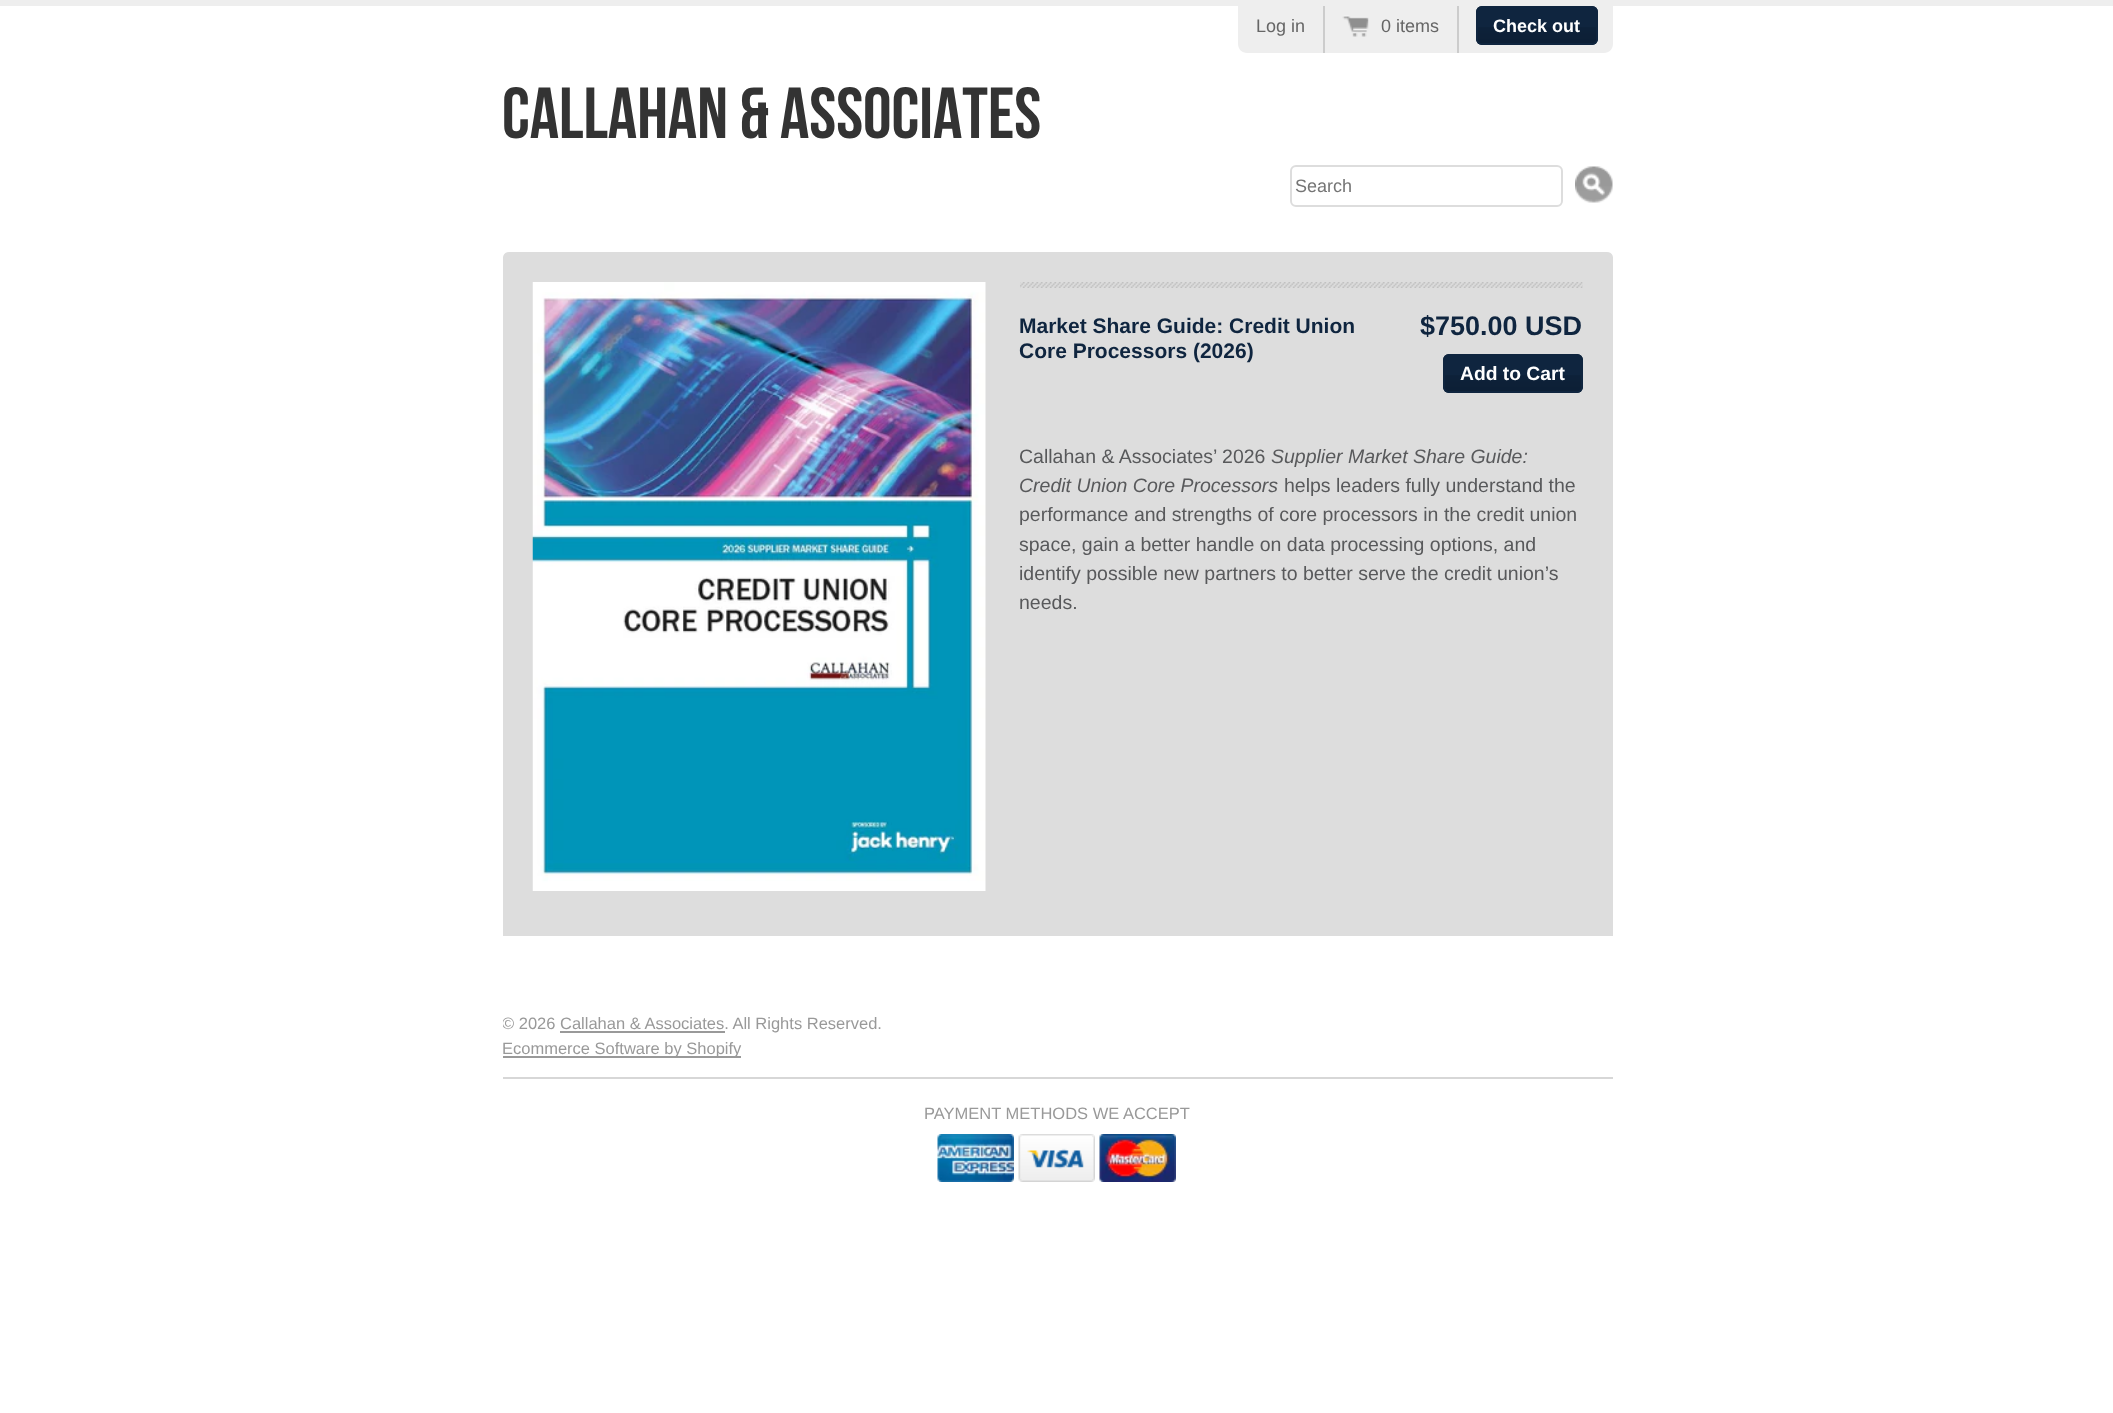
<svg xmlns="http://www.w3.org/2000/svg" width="2113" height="1413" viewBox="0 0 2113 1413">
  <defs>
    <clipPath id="clip1"><path d="M503 974h1110v235H503z"/></clipPath>
  </defs>
  <rect width="100%" height="100%" fill="#fff"/>
  <path d="M0 0h2113v6H0z" fill="#eee"/>
  <path d="M1238 6H1613V44C1613 49 1609 53 1604 53H1247C1242 53 1238 49 1238 44Z" fill="#eee"/>
  <path d="M1323 6h2v47H1323z" fill="#ccc"/>
  <path d="M1457 6h2v47H1457z" fill="#ccc"/>
  <image x="1342" y="15" width="27" height="22" href="img/1.png"/>
  <rect x="1476" y="6" width="122" height="39" rx="6" fill="#0f253f"/>
  <image x="1476" y="27" width="121" height="17" href="img/2.png"/>
  <rect x="1477" y="7" width="120" height="37" rx="5" fill="none" stroke="#0f253f" stroke-width="2"/>
  <rect x="1291" y="166" width="271" height="40" rx="5" fill="none" stroke="#ddd" stroke-width="2"/>
  <image x="1575" y="166" width="38" height="37" href="img/3.png"/>
  <path d="M509 252H1607C1610.5 252 1613 254.5 1613 258V936H503V258C503 254.5 505.5 252 509 252Z" fill="#ddd"/>
  <image x="532" y="282" width="454" height="609" href="img/4.png"/>
  <image x="1020" y="282" width="563" height="6" href="img/5.png"/>
  <rect x="1443" y="354" width="140" height="39" rx="6" fill="#0f253f"/>
  <image x="1443" y="375" width="139" height="17" href="img/6.png"/>
  <rect x="1444" y="355" width="138" height="37" rx="5" fill="none" stroke="#0f253f" stroke-width="2"/>
  <path d="M560 1031h165v2H560z" fill="#999"/>
  <path d="M503 1056h238v2H503z" fill="#999"/>
  <path d="M503 1077h1110v2H503z" fill="#d7d7d7"/>
  <image x="937" y="1134" width="77" height="48" href="img/7.png"/>
  <image x="1018" y="1134" width="77" height="48" href="img/8.png"/>
  <image x="1099" y="1134" width="77" height="48" href="img/9.png"/>
  <g font-family="Liberation Sans" font-size="18" fill="#666">
    <text x="1256" y="32">Log in</text>
    <text x="1381" y="32">0 items</text>
  </g>
  <text x="1493" y="32" font-family="Liberation Sans" font-size="18" font-weight="bold" fill="#fff">Check out</text>
  <text x="502" y="138" font-family="Bebas Neue" font-size="72" fill="#333">Callahan &amp; Associates</text>
  <text x="1295" y="192" font-family="Liberation Sans" font-size="18" fill="#757575">Search</text>
  <g font-family="Liberation Sans" font-size="21" font-weight="bold" fill="#0f253f">
    <text x="1019" y="333">Market Share Guide: Credit Union</text>
    <text x="1019" y="358">Core Processors (2026)</text>
  </g>
  <text x="1420" y="335" font-family="Liberation Sans" font-size="27" font-weight="bold" fill="#0f253f">$750.00 USD</text>
  <text x="1460" y="380" font-family="Liberation Sans" font-size="19.25" font-weight="bold" fill="#fff">Add to Cart</text>
  <text x="1019" y="463" font-family="Liberation Sans" font-size="19.5" fill="#58595b">Callahan &amp; Associates’ 2026</text>
  <g font-family="Liberation Sans" font-size="19.5" font-style="italic" fill="#58595b">
    <text x="1271" y="463">Supplier Market Share Guide:</text>
    <text x="1019" y="492">Credit Union Core Processors</text>
  </g>
  <g font-family="Liberation Sans" font-size="19.5" fill="#58595b">
    <text x="1284" y="492">helps leaders fully understand the</text>
    <text x="1019" y="521">performance and strengths of core processors in the credit union</text>
    <text x="1019" y="551">space, gain a better handle on data processing options, and</text>
    <text x="1019" y="580">identify possible new partners to better serve the credit union’s</text>
    <text x="1019" y="609">needs.</text>
  </g>
  <g clip-path="url(#clip1)">
    <text x="502" y="1029" font-family="Liberation Sans" font-size="16.5" fill="#999">© 2026</text>
  </g>
  <g font-family="Liberation Sans" font-size="16.5" fill="#999">
    <text x="560" y="1029">Callahan &amp; Associates. All Rights Reserved.</text>
    <text x="502" y="1054">Ecommerce Software by Shopify</text>
    <text x="924" y="1119">PAYMENT METHODS WE ACCEPT</text>
  </g>
</svg>
